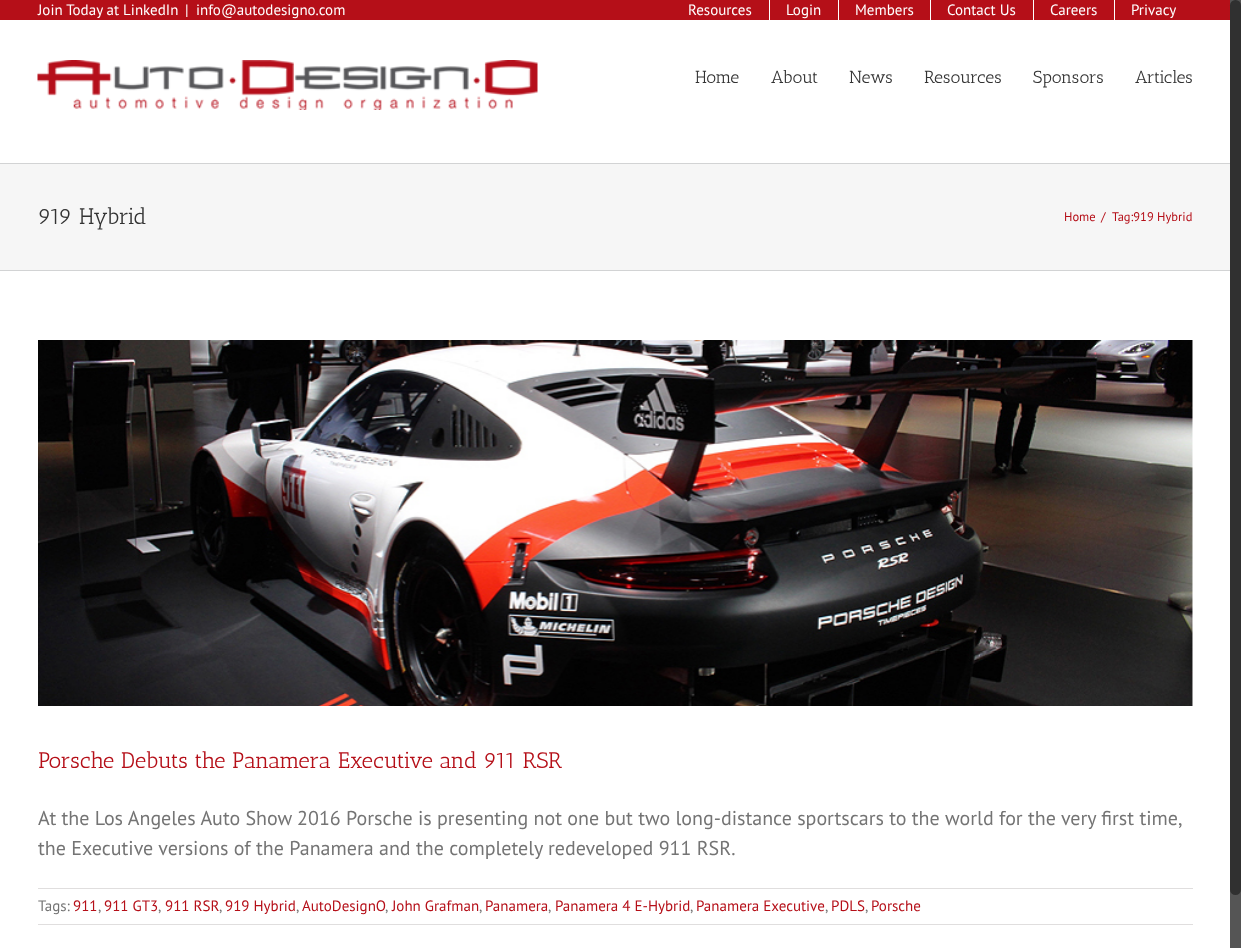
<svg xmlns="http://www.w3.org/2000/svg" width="1241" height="948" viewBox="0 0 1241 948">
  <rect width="100%" height="100%" fill="#fff"/>
  <path d="M0 0h1230v20H0z" fill="#b50f18"/>
  <path d="M769 0h1v20H769z" fill="#fff"/>
  <path d="M838 0h1v20H838z" fill="#fff"/>
  <path d="M930 0h1v20H930z" fill="#fff"/>
  <path d="M1033 0h1v20H1033z" fill="#fff"/>
  <path d="M1114 0h1v20H1114z" fill="#fff"/>
  <image x="37" y="60" width="501" height="50" href="img/1.png"/>
  <path d="M0 164h1230v106H0z" fill="#f6f6f6"/>
  <path d="M0 163h1230v1H0z" fill="#d2d3d4"/>
  <path d="M0 270h1230v1H0z" fill="#d2d3d4"/>
  <image x="38" y="340" width="1155" height="366" href="img/2.png"/>
  <path d="M38 888h1155v1H38z" fill="#e0dede"/>
  <path d="M38 924h1155v1H38z" fill="#e0dede"/>
  <path d="M1230 0h11v948H1230z" fill="#555"/>
  <rect x="1230" width="11" height="895" rx="5.5" fill="#303030"/>
  <g font-family="PT Sans" font-size="15" fill="#fff">
    <text x="38" y="15">Join Today at LinkedIn</text>
    <text x="185" y="15">|</text>
    <text x="196" y="15">info@autodesigno.com</text>
    <text x="688" y="15">Resources</text>
    <text x="786" y="15">Login</text>
    <text x="855" y="15">Members</text>
    <text x="947" y="15">Contact Us</text>
    <text x="1050" y="15">Careers</text>
    <text x="1131" y="15">Privacy</text>
  </g>
  <g font-family="Antic Slab" font-size="17.5" fill="#333">
    <text x="695" y="83">Home</text>
    <text x="771" y="83">About</text>
    <text x="849" y="83">News</text>
    <text x="924" y="83">Resources</text>
    <text x="1033" y="83">Sponsors</text>
    <text x="1135" y="83">Articles</text>
  </g>
  <text x="38" y="224" font-family="Antic Slab" font-size="22.5" fill="#333">919 Hybrid</text>
  <g font-family="PT Sans" font-size="12.5" fill="#b50f18">
    <text x="1064" y="221">Home</text>
    <text x="1101" y="221">/</text>
    <text x="1112" y="221">Tag:919 Hybrid</text>
  </g>
  <text x="38" y="768" font-family="Antic Slab" font-size="22.5" fill="#b50f18">Porsche Debuts the Panamera Executive and 911 RSR</text>
  <g font-family="PT Sans" font-size="20" fill="#747474">
    <text x="38" y="825">At the Los Angeles Auto Show 2016 Porsche is presenting not one but two long-distance sportscars to the world for the very first time,</text>
    <text x="38" y="855">the Executive versions of the Panamera and the completely redeveloped 911 RSR.</text>
  </g>
  <text x="38" y="911" font-family="PT Sans" font-size="15" fill="#747474">Tags:</text>
  <text x="73" y="911" font-family="PT Sans" font-size="15" fill="#b50f18">911</text>
  <text x="98" y="911" font-family="PT Sans" font-size="15" fill="#747474">,</text>
  <text x="104" y="911" font-family="PT Sans" font-size="15" fill="#b50f18">911 GT3</text>
  <text x="158" y="911" font-family="PT Sans" font-size="15" fill="#747474">,</text>
  <text x="165" y="911" font-family="PT Sans" font-size="15" fill="#b50f18">911 RSR</text>
  <text x="219" y="911" font-family="PT Sans" font-size="15" fill="#747474">,</text>
  <text x="225" y="911" font-family="PT Sans" font-size="15" fill="#b50f18">919 Hybrid</text>
  <text x="296" y="911" font-family="PT Sans" font-size="15" fill="#747474">,</text>
  <text x="302" y="911" font-family="PT Sans" font-size="15" fill="#b50f18">AutoDesignO</text>
  <text x="385" y="911" font-family="PT Sans" font-size="15" fill="#747474">,</text>
  <text x="392" y="911" font-family="PT Sans" font-size="15" fill="#b50f18">John Grafman</text>
  <text x="479" y="911" font-family="PT Sans" font-size="15" fill="#747474">,</text>
  <text x="485" y="911" font-family="PT Sans" font-size="15" fill="#b50f18">Panamera</text>
  <text x="548" y="911" font-family="PT Sans" font-size="15" fill="#747474">,</text>
  <text x="555" y="911" font-family="PT Sans" font-size="15" fill="#b50f18">Panamera 4 E-Hybrid</text>
  <text x="690" y="911" font-family="PT Sans" font-size="15" fill="#747474">,</text>
  <text x="696" y="911" font-family="PT Sans" font-size="15" fill="#b50f18">Panamera Executive</text>
  <text x="825" y="911" font-family="PT Sans" font-size="15" fill="#747474">,</text>
  <text x="831" y="911" font-family="PT Sans" font-size="15" fill="#b50f18">PDLS</text>
  <text x="865" y="911" font-family="PT Sans" font-size="15" fill="#747474">,</text>
  <text x="871" y="911" font-family="PT Sans" font-size="15" fill="#b50f18">Porsche</text>
</svg>
